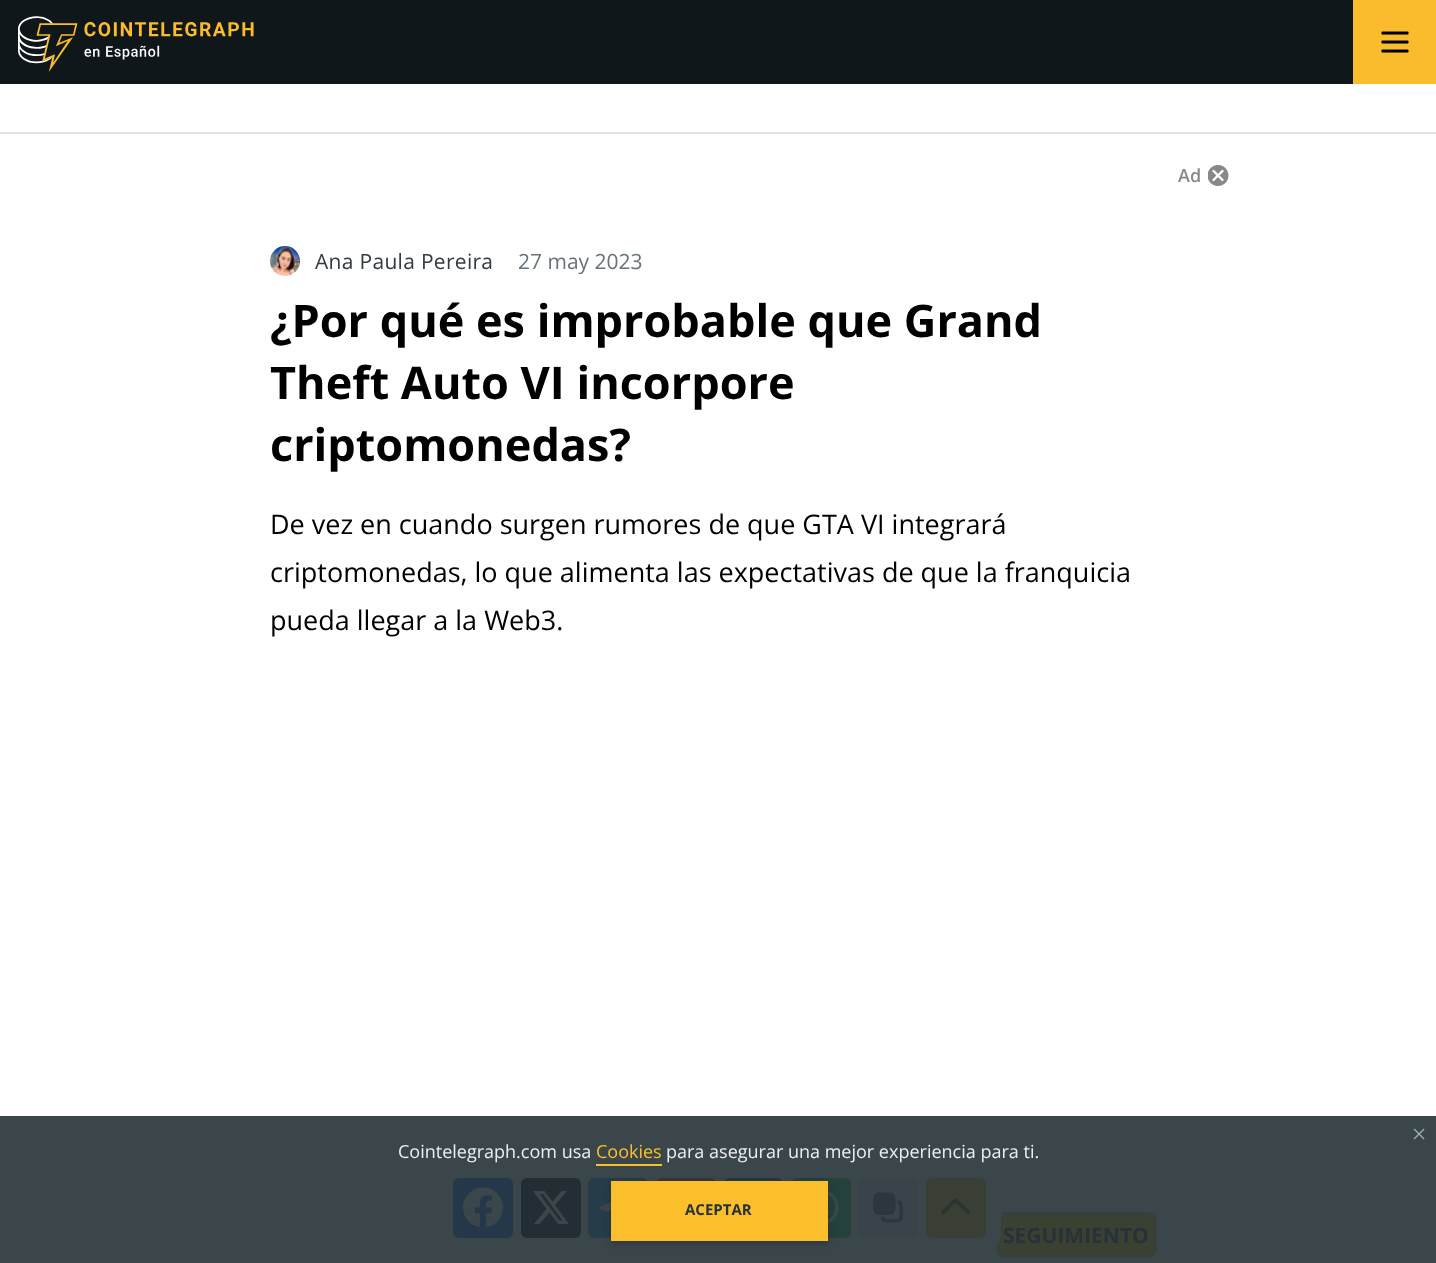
<svg xmlns="http://www.w3.org/2000/svg" width="1436" height="1263" viewBox="0 0 1436 1263">
  <rect width="100%" height="100%" fill="#fff"/>
  <path d="M0 1116h1436v147H0z" fill="#3b464b"/>
  <path d="M0 0h1353v84H0z" fill="#10171b"/>
  <image x="18" y="16" width="236" height="56" href="img/1.png"/>
  <path d="M1353 0h83v84H1353z" fill="#fabc2c"/>
  <image x="1381" y="31" width="28" height="22" href="img/2.png"/>
  <path d="M0 132h1436v2H0z" fill="#dee5e8"/>
  <image x="1208" y="165" width="21" height="21" href="img/3.png"/>
  <image x="270" y="246" width="30" height="30" href="img/4.png"/>
  <rect x="998" y="1214" width="157" height="42" rx="6" fill="#212c32bf" filter="blur(1.5px)"/>
  <rect x="998" y="1214" width="157" height="42" rx="6" fill="#3b4132"/>
  <rect x="438" y="1166" width="563" height="82" rx="12" fill="#3b464b"/>
  <image x="453" y="1178" width="60" height="60" href="img/5.png"/>
  <rect x="521" y="1178" width="60" height="60" rx="6" fill="#232e34"/>
  <path d="M561.5 1191H567L555 1205L569 1224H558L549.5 1212.5L539.5 1224H534L546.5 1209L533 1191H544.5L552.5 1201.5ZM559.5 1220.5H562.5L543 1194H539.5Z" fill="#3b464b"/>
  <image x="588" y="1178" width="60" height="60" href="img/6.png"/>
  <image x="656" y="1178" width="60" height="3" href="img/7.png"/>
  <image x="723" y="1178" width="60" height="3" href="img/8.png"/>
  <image x="791" y="1178" width="60" height="60" href="img/9.png"/>
  <image x="858" y="1178" width="60" height="60" href="img/10.png"/>
  <image x="926" y="1178" width="60" height="60" href="img/11.png"/>
  <image x="1413" y="1128" width="12" height="12" href="img/12.png"/>
  <path d="M596 1164h66v2H596z" fill="#fabf2c"/>
  <path d="M611 1184h217v60H611z" fill="#00000033" filter="blur(3px)"/>
  <path d="M611 1181h217v60H611z" fill="#fabf2b"/>
  <text x="1178" y="182" font-family="Open Sans" font-size="18" font-weight="600" fill="#888">Ad</text>
  <text x="315" y="269" font-family="Open Sans" font-size="21" letter-spacing="0.3" fill="#303d43">Ana Paula Pereira</text>
  <text x="518" y="269" font-family="Open Sans" font-size="21" fill="#66747c">27 may 2023</text>
  <g font-family="Open Sans" font-size="45" font-weight="bold" fill="#000">
    <text x="270" y="337">¿Por qué es improbable que Grand</text>
    <text x="270" y="399">Theft Auto VI incorpore</text>
    <text x="270" y="461">criptomonedas?</text>
  </g>
  <g font-family="Open Sans" font-size="27" fill="#000">
    <text x="270" y="534">De vez en cuando surgen rumores de que GTA VI integrará</text>
    <text x="270" y="582">criptomonedas, lo que alimenta las expectativas de que la franquicia</text>
    <text x="270" y="630">pueda llegar a la Web3.</text>
  </g>
  <text x="1003" y="1243" font-family="Open Sans" font-size="21" font-weight="bold" fill="#273238">SEGUIMIENTO</text>
  <text x="398" y="1158" font-family="Open Sans" font-size="18" fill="#eceff1">Cointelegraph.com usa</text>
  <text x="596" y="1158" font-family="Open Sans" font-size="18" fill="#fabf2c">Cookies</text>
  <text x="666" y="1158" font-family="Open Sans" font-size="18" fill="#eceff1">para asegurar una mejor experiencia para ti.</text>
  <text x="685" y="1215" font-family="Open Sans" font-size="15" font-weight="bold" fill="#273238">ACEPTAR</text>
</svg>
